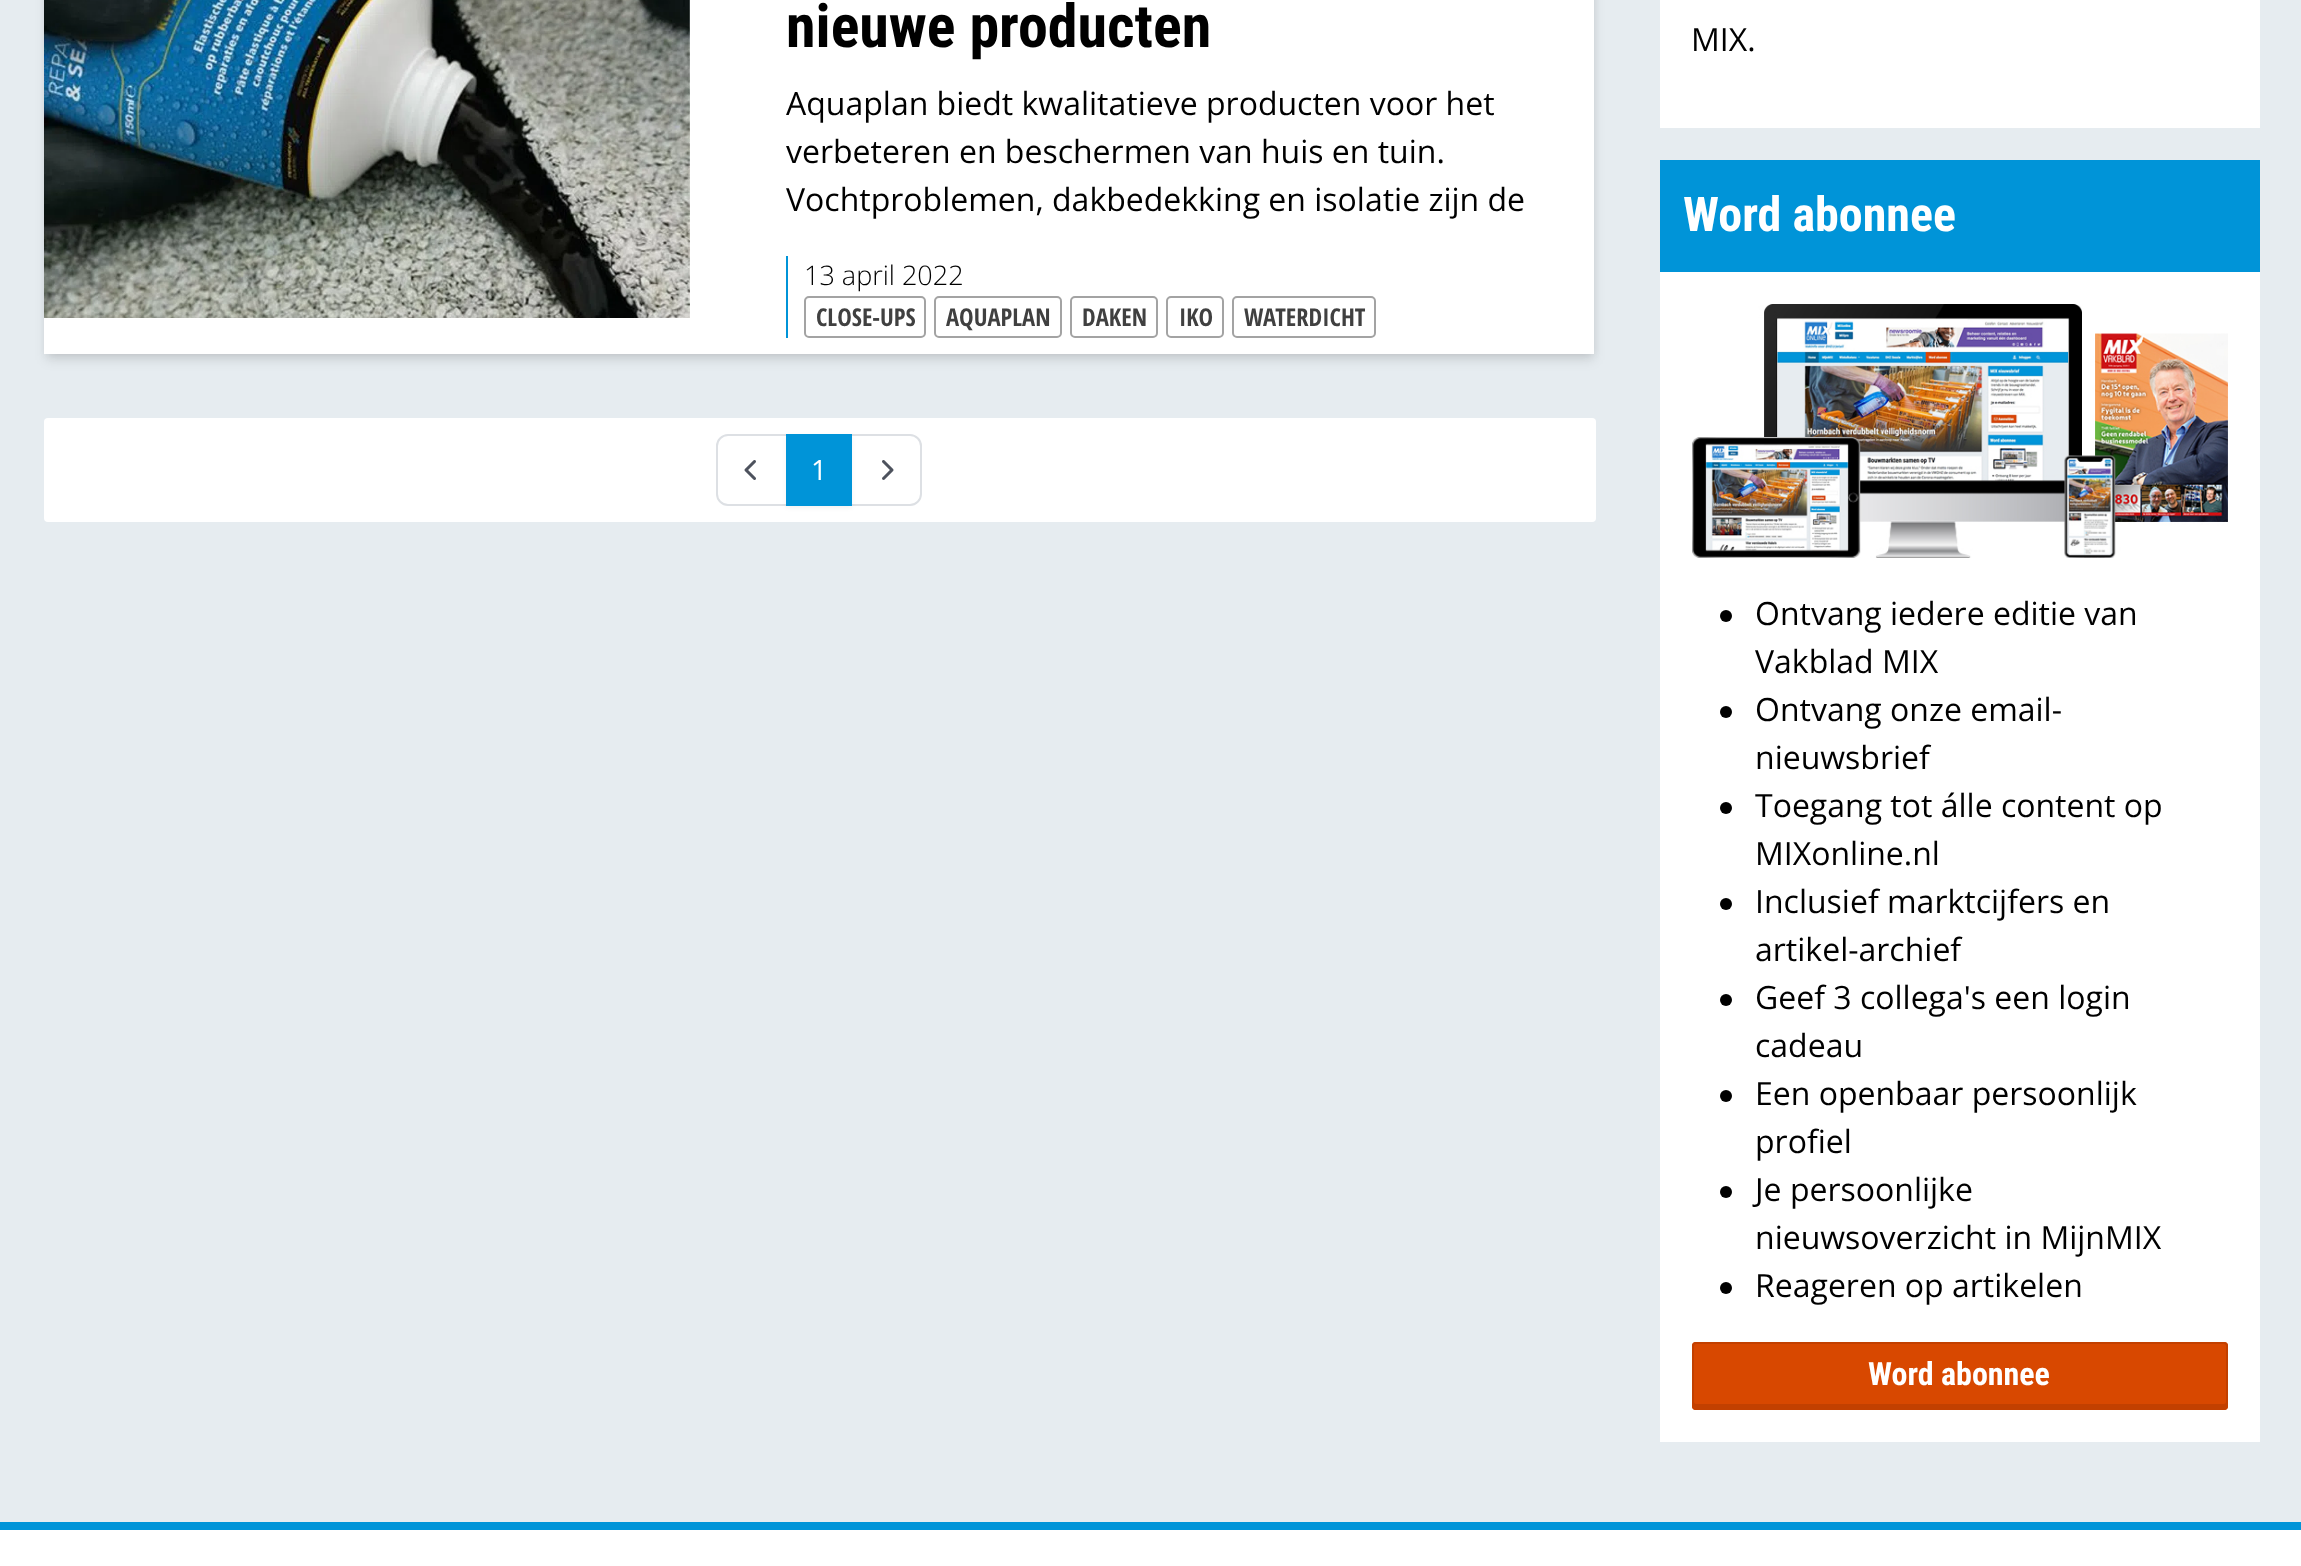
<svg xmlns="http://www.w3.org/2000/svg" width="2301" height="1566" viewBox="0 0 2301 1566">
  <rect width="100%" height="100%" fill="#e6ecf0"/>
  <path d="M48 -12h1544v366H48z" fill="#0000001a" filter="blur(4px)"/>
  <path d="M46 -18h1548v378H46z" fill="#0000001a" filter="blur(6px)"/>
  <path d="M44 318h646v36H44z" fill="#fff"/>
  <image x="44" y="0" width="646" height="318" href="img/1.png"/>
  <path d="M690 0h904v354H690z" fill="#fff"/>
  <path d="M786 256h2v82H786z" fill="#0094d8"/>
  <rect x="805" y="297" width="120" height="40" rx="4" fill="none" stroke="#a3a3a3" stroke-width="2"/>
  <rect x="935" y="297" width="126" height="40" rx="4" fill="none" stroke="#a3a3a3" stroke-width="2"/>
  <rect x="1071" y="297" width="86" height="40" rx="4" fill="none" stroke="#a3a3a3" stroke-width="2"/>
  <rect x="1167" y="297" width="56" height="40" rx="4" fill="none" stroke="#a3a3a3" stroke-width="2"/>
  <rect x="1233" y="297" width="142" height="40" rx="4" fill="none" stroke="#a3a3a3" stroke-width="2"/>
  <rect x="44" y="418" width="1552" height="104" rx="4" fill="#fff"/>
  <path d="M728 435H787V505H728C722 505 717 500 717 494V446C717 440 722 435 728 435Z" fill="none" stroke="#dde0e4" stroke-width="2"/>
  <image x="744" y="460" width="12" height="20" href="img/2.png"/>
  <path d="M851 435H910C916 435 921 440 921 446V494C921 500 916 505 910 505H851Z" fill="none" stroke="#dde0e4" stroke-width="2"/>
  <path d="M786 436h66v72H786z" fill="#0000000d" filter="blur(2px)"/>
  <path d="M786 434h66v72H786z" fill="#0094d8"/>
  <image x="882" y="460" width="12" height="20" href="img/3.png"/>
  <path d="M1660 0h600v128H1660z" fill="#fff"/>
  <path d="M1660 160h600v112H1660z" fill="#0094d8"/>
  <path d="M1660 272h600v1170H1660z" fill="#fff"/>
  <image x="1692" y="304" width="536" height="254" href="img/4.png"/>
  <circle cx="1726" cy="616" r="6" fill="#000"/>
  <circle cx="1726" cy="712" r="6" fill="#000"/>
  <circle cx="1726" cy="808" r="6" fill="#000"/>
  <circle cx="1726" cy="904" r="6" fill="#000"/>
  <circle cx="1726" cy="1000" r="6" fill="#000"/>
  <circle cx="1726" cy="1096" r="6" fill="#000"/>
  <circle cx="1726" cy="1192" r="6" fill="#000"/>
  <circle cx="1726" cy="1288" r="6" fill="#000"/>
  <rect x="1692" y="1342" width="536" height="68" rx="4" fill="#d84800"/>
  <path d="M1694 1402V1406C1694 1407 1695 1408 1696 1408H2224C2225 1408 2226 1407 2226 1406V1402C2226 1403 2225 1404 2224 1404H1696C1695 1404 1694 1403 1694 1402Z" fill="#c24000"/>
  <rect x="1693" y="1343" width="534" height="66" rx="3" fill="none" stroke="#c24000" stroke-width="2"/>
  <path d="M0 1530h2301v36H0z" fill="#fff"/>
  <path d="M0 1522h2301v8H0z" fill="#0094d8"/>
  <text x="786" y="47" font-family="Roboto Condensed" font-size="60" font-weight="bold" fill="#000">nieuwe producten</text>
  <g font-family="Open Sans" font-size="32" fill="#000">
    <text x="786" y="115">Aquaplan biedt kwalitatieve producten voor het</text>
    <text x="786" y="163">verbeteren en beschermen van huis en tuin.</text>
    <text x="786" y="211">Vochtproblemen, dakbedekking en isolatie zijn de</text>
  </g>
  <text x="804" y="285" font-family="Open Sans" font-size="27" font-weight="300" fill="#000">13 april 2022</text>
  <g font-family="Open Sans Condensed" font-size="24.5" font-weight="bold" fill="#404040">
    <text x="816" y="326">CLOSE-UPS</text>
    <text x="946" y="326">AQUAPLAN</text>
    <text x="1082" y="326">DAKEN</text>
    <text x="1179" y="326">IKO</text>
    <text x="1244" y="326">WATERDICHT</text>
  </g>
  <text x="811" y="480" font-family="Open Sans" font-size="28" fill="#fff">1</text>
  <text x="1691" y="51" font-family="Open Sans" font-size="32" fill="#000">MIX.</text>
  <text x="1683" y="231" font-family="Roboto Condensed" font-size="48" font-weight="bold" fill="#fff">Word abonnee</text>
  <g font-family="Open Sans" font-size="32" fill="#000">
    <text x="1755" y="625">Ontvang iedere editie van</text>
    <text x="1755" y="673">Vakblad MIX</text>
    <text x="1755" y="721">Ontvang onze email-</text>
    <text x="1755" y="769">nieuwsbrief</text>
    <text x="1755" y="817">Toegang tot álle content op</text>
    <text x="1755" y="865">MIXonline.nl</text>
    <text x="1755" y="913">Inclusief marktcijfers en</text>
    <text x="1755" y="961">artikel-archief</text>
    <text x="1755" y="1009">Geef 3 collega's een login</text>
    <text x="1755" y="1057">cadeau</text>
    <text x="1755" y="1105">Een openbaar persoonlijk</text>
    <text x="1755" y="1153">profiel</text>
    <text x="1755" y="1201">Je persoonlijke</text>
    <text x="1755" y="1249">nieuwsoverzicht in MijnMIX</text>
    <text x="1755" y="1297">Reageren op artikelen</text>
  </g>
  <text x="1868" y="1385" font-family="Roboto Condensed" font-size="32" font-weight="bold" fill="#fff">Word abonnee</text>
</svg>
